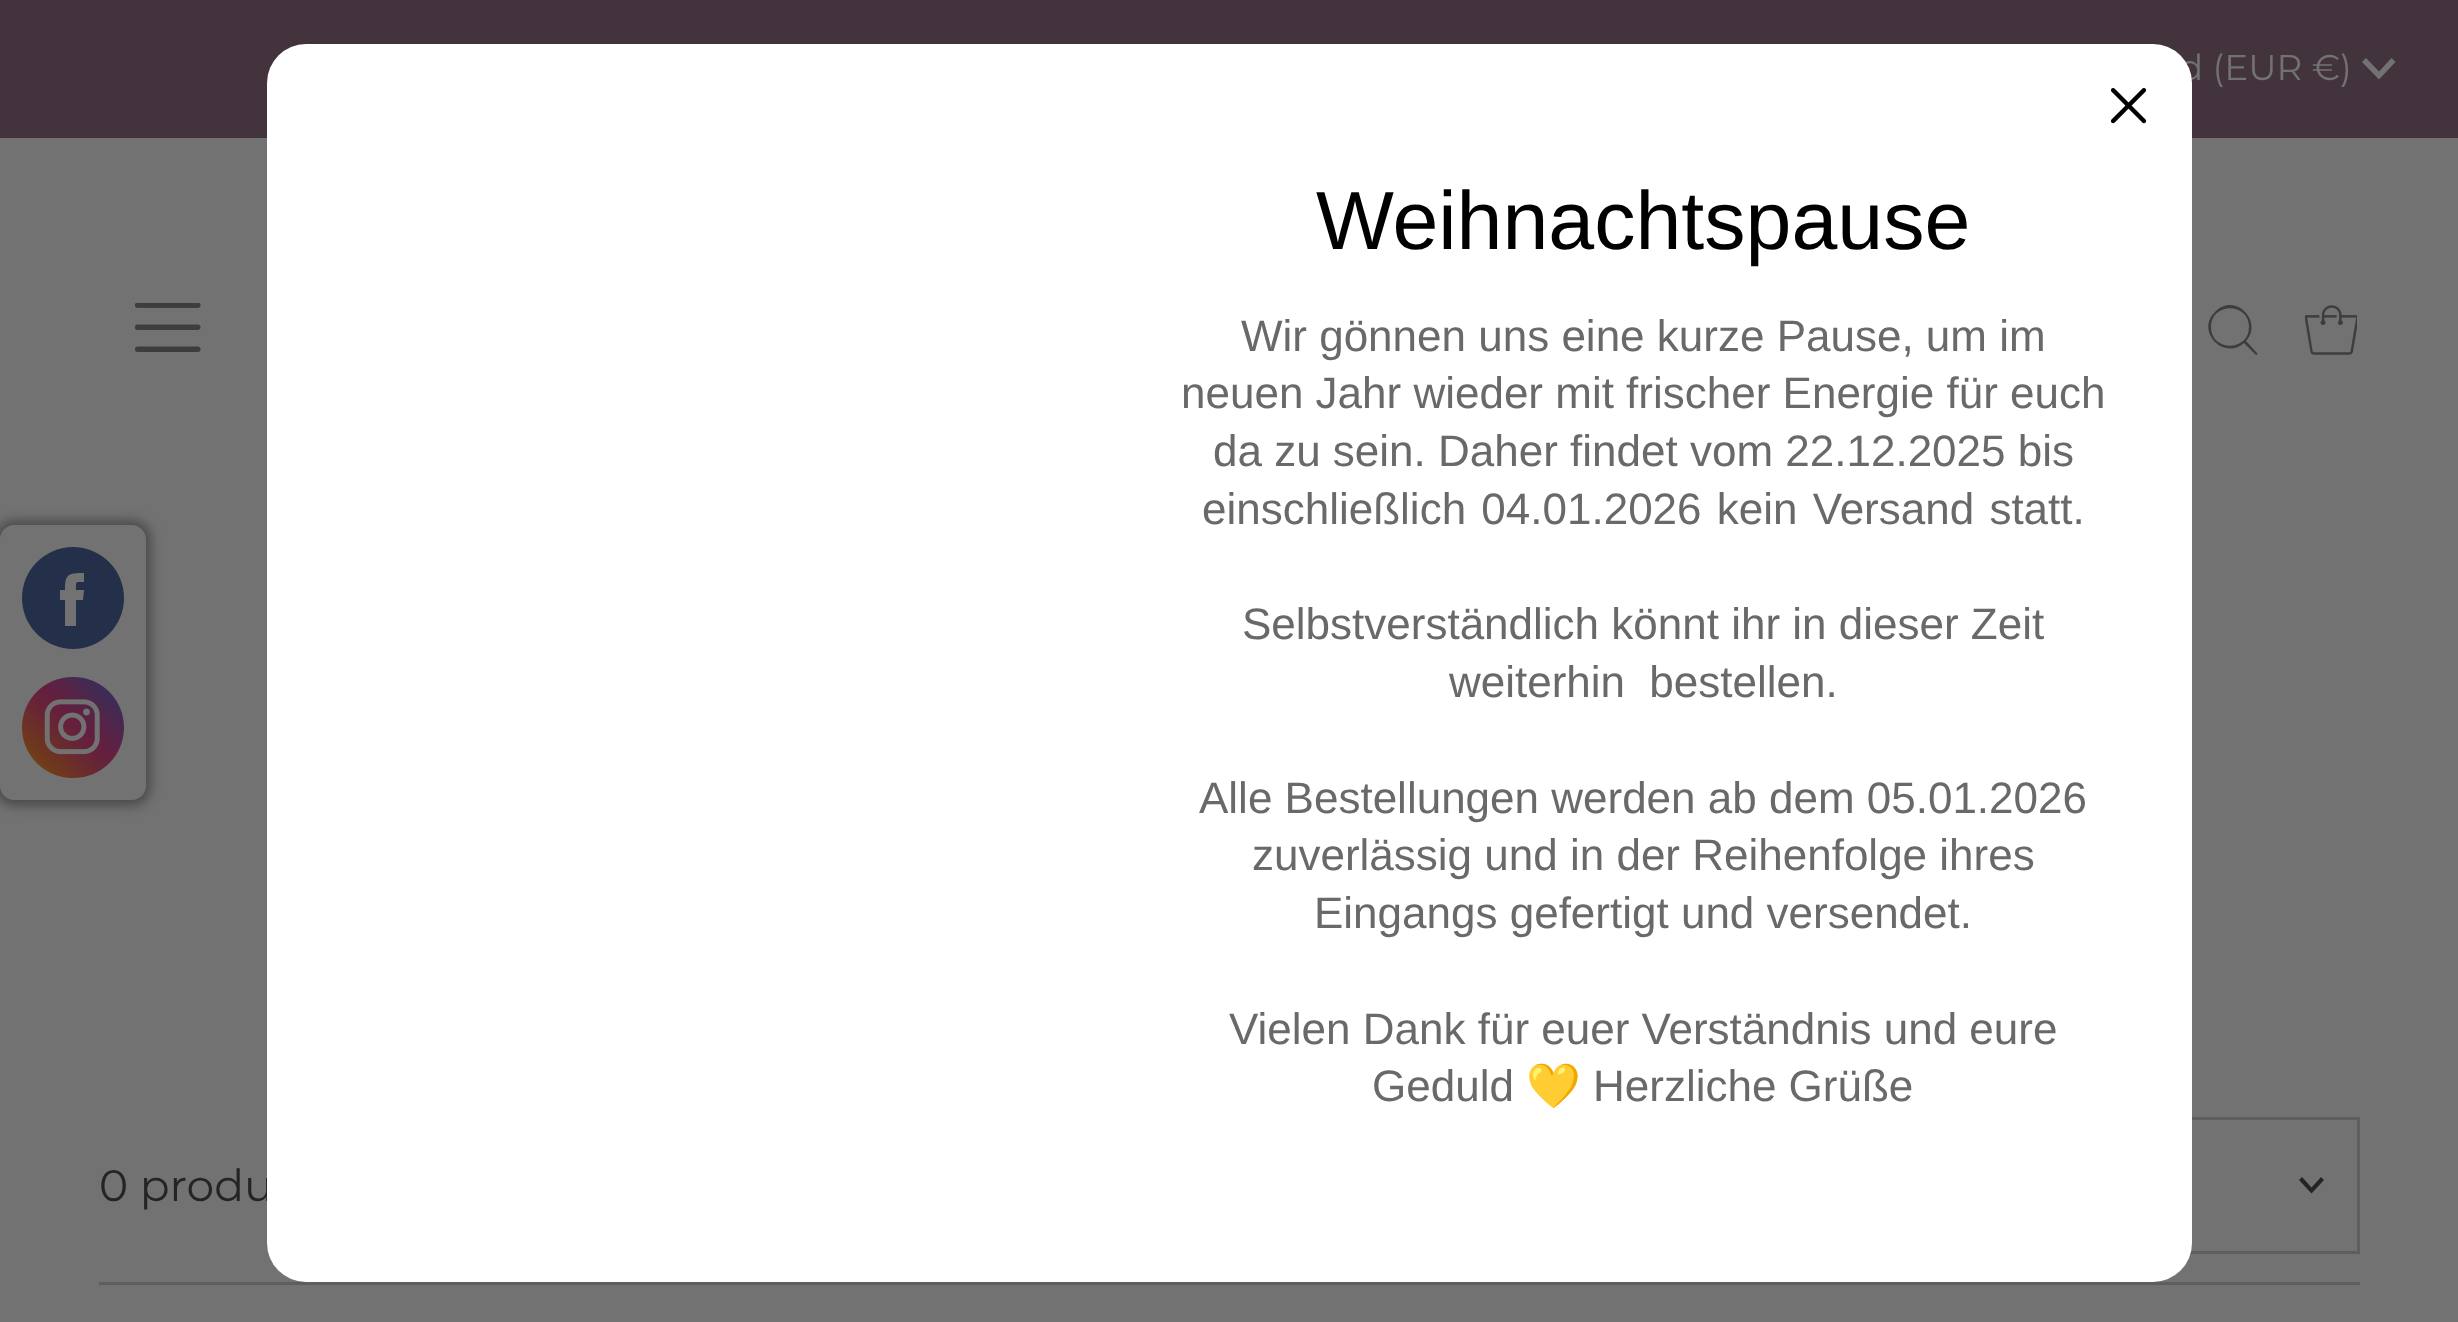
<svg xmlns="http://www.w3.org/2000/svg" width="2458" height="1322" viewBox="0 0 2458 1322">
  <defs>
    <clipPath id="clip1"><path d="M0 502H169V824H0ZM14 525H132C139.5 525 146 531.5 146 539V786C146 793.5 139.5 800 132 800H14C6.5 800 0 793.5 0 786V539C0 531.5 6.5 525 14 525Z" clip-rule="evenodd"/></clipPath>
  </defs>
  <rect width="100%" height="100%" fill="#727272"/>
  <path d="M0 0h2458v138H0z" fill="#42333c"/>
  <path d="M2391.5 58L2379 71.5L2366 58L2362 62L2379 79.5L2395.5 62Z" fill="#727272"/>
  <image x="135" y="303" width="66" height="49" href="img/1.png"/>
  <path d="M2257 353L2246 341C2264 322 2235 291 2215 312C2195 331 2224 361 2244 343L2256 355C2257 355 2258 353 2257 353ZM2211 327C2211 302 2249 302 2249 327C2249 352 2211 352 2211 327Z" fill="#3d3d3d"/>
  <image x="2305" y="305" width="52" height="50" href="img/2.png"/>
  <path d="M99 1282h2261v3H99z" fill="#5e5e5e"/>
  <path d="M1756.5 1118.5h602v134H1756.5z" fill="none" stroke="#5e5e5e" stroke-width="3"/>
  <path d="M2321 1177L2311.5 1187.5L2302 1177L2299 1180L2311.5 1193.5L2324 1180Z" fill="#242424"/>
  <g clip-path="url(#clip1)">
    <rect x="-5" y="520" width="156" height="286" rx="19" fill="#4b4b4b" filter="blur(5.5px)"/>
  </g>
  <circle cx="73" cy="598" r="51" fill="#243049"/>
  <path d="M83 600H76V626H65V600H60V590H65C65 574 68 573 84 573V582C75 582 76 581 76 590H84Z" fill="#727272"/>
  <image x="22" y="677" width="102" height="101" href="img/3.png"/>
  <text x="2179" y="80" font-family="Montserrat" font-size="35.75" fill="#727272">d (EUR €)</text>
  <text x="99" y="1201" font-family="Montserrat" font-size="44" fill="#242424">0 produ</text>
  <rect x="267" y="44" width="1925" height="1238" rx="39" fill="#fff"/>
  <image x="2110" y="88" width="37" height="36" href="img/4.png"/>
  <text x="1316" y="249" font-family="Liberation Sans" font-size="82.5" fill="#000">Weihnachtspause</text>
  <g font-family="Liberation Sans" font-size="44" fill="#696969">
    <text x="1241" y="351">Wir gönnen uns eine kurze Pause, um im</text>
    <text x="1181" y="408">neuen Jahr wieder mit frischer Energie für euch</text>
    <text x="1213" y="466">da zu sein. Daher findet vom 22.12.2025 bis</text>
    <text x="1202" y="524" word-spacing="3">einschließlich 04.01.2026 kein Versand statt.</text>
    <text x="1242" y="639">Selbstverständlich könnt ihr in dieser Zeit</text>
    <text x="1449" y="697" word-spacing="12">weiterhin bestellen.</text>
    <text x="1199" y="813">Alle Bestellungen werden ab dem 05.01.2026</text>
    <text x="1252" y="870">zuverlässig und in der Reihenfolge ihres</text>
    <text x="1314" y="928">Eingangs gefertigt und versendet.</text>
    <text x="1229" y="1044">Vielen Dank für euer Verständnis und eure</text>
    <text x="1372" y="1101">Geduld</text>
  </g>
  <text x="1526" y="1101" font-family="Noto Color Emoji" font-size="44" fill="#696969">💛</text>
  <text x="1593" y="1101" font-family="Liberation Sans" font-size="44" fill="#696969">Herzliche Grüße</text>
</svg>
